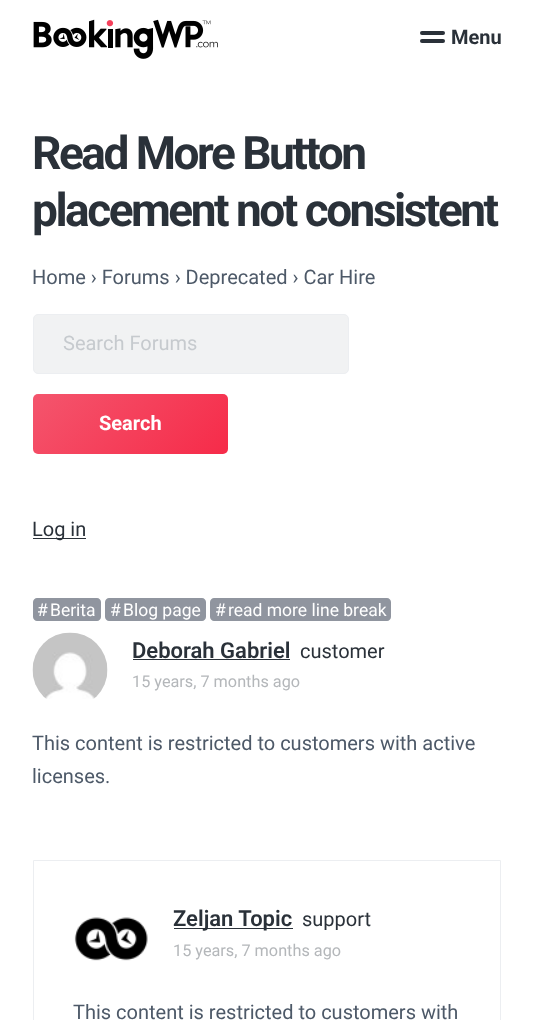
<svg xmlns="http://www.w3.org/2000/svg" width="533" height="1020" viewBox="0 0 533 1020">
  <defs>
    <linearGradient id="g1" gradientUnits="userSpaceOnUse" x1="66" y1="360" x2="194" y2="488"><stop offset="0" stop-color="#f4556d"/><stop offset="1" stop-color="#f62b49"/></linearGradient>
  </defs>
  <rect width="100%" height="100%" fill="#fff"/>
  <image x="33" y="19" width="185" height="40" href="img/1.png"/>
  <rect x="420" y="31" width="25" height="4" rx="2" fill="#2a3139"/>
  <rect x="420" y="39" width="25" height="4" rx="2" fill="#2a3139"/>
  <rect x="33.5" y="314.5" width="315" height="59" rx="4.5" fill="#f1f2f3" stroke="#eceef1"/>
  <rect x="33" y="394" width="195" height="60" rx="5" fill="url(#g1)"/>
  <path d="M33 538h53v1H33z" fill="#2a3139"/>
  <path d="M37 598H50V621H37C35 621 33 619 33 617V602C33 600 35 598 37 598Z" fill="#90959f"/>
  <path d="M50 598H97C99 598 101 600 101 602V617C101 619 99 621 97 621H50Z" fill="#90959f"/>
  <path d="M109 598H123V621H109C107 621 105 619 105 617V602C105 600 107 598 109 598Z" fill="#90959f"/>
  <path d="M123 598H202C204 598 206 600 206 602V617C206 619 204 621 202 621H123Z" fill="#90959f"/>
  <path d="M214 598H228V621H214C212 621 210 619 210 617V602C210 600 212 598 214 598Z" fill="#90959f"/>
  <path d="M228 598H387C389 598 391 600 391 602V617C391 619 389 621 387 621H228Z" fill="#90959f"/>
  <image x="32" y="632" width="76" height="67" href="img/2.png"/>
  <path d="M133 659h157v1H133z" fill="#2a3139"/>
  <path d="M33.5 860.5h467v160H33.5z" fill="none" stroke="#eceef1"/>
  <image x="74" y="917" width="74" height="44" href="img/3.png"/>
  <path d="M174 928h119v1H174z" fill="#2a3139"/>
  <text x="451" y="44" font-family="Roboto" font-size="20" font-weight="bold" fill="#2a3139">Menu</text>
  <g font-family="Roboto" font-size="46" font-weight="bold" letter-spacing="-2.5" fill="#2a3139">
    <text x="32" y="169">Read More Button</text>
    <text x="32" y="226">placement not consistent</text>
  </g>
  <text x="32" y="284" font-family="Roboto" font-size="20" fill="#4d5968">Home › Forums › Deprecated › Car Hire</text>
  <text x="63" y="350" font-family="Roboto" font-size="20" fill="#c6cace">Search Forums</text>
  <text x="99" y="430" font-family="Roboto" font-size="20" font-weight="bold" fill="#fff">Search</text>
  <text x="32" y="536" font-family="Roboto" font-size="20" fill="#2a3139">Log in</text>
  <g font-family="Roboto" font-size="17.5" fill="#fff">
    <text x="37" y="616">#</text>
    <text x="50" y="616">Berita</text>
    <text x="110" y="616">#</text>
    <text x="123" y="616">Blog page</text>
    <text x="215" y="616">#</text>
    <text x="228" y="616">read more line break</text>
  </g>
  <text x="132" y="658" font-family="Roboto" font-size="22" font-weight="600" fill="#2a3139">Deborah Gabriel</text>
  <text x="300" y="658" font-family="Roboto" font-size="20" fill="#2a3139">customer</text>
  <text x="132" y="687" font-family="Roboto" font-size="16.25" fill="#b4b7ba">15 years, 7 months ago</text>
  <g font-family="Roboto" font-size="20" fill="#4d5968">
    <text x="32" y="750">This content is restricted to customers with active</text>
    <text x="32" y="783">licenses.</text>
  </g>
  <text x="173" y="926" font-family="Roboto" font-size="22" font-weight="600" fill="#2a3139">Zeljan Topic</text>
  <text x="302" y="926" font-family="Roboto" font-size="20" fill="#2a3139">support</text>
  <text x="173" y="956" font-family="Roboto" font-size="16.25" fill="#b4b7ba">15 years, 7 months ago</text>
  <text x="73" y="1019" font-family="Roboto" font-size="20" fill="#4d5968">This content is restricted to customers with</text>
</svg>
